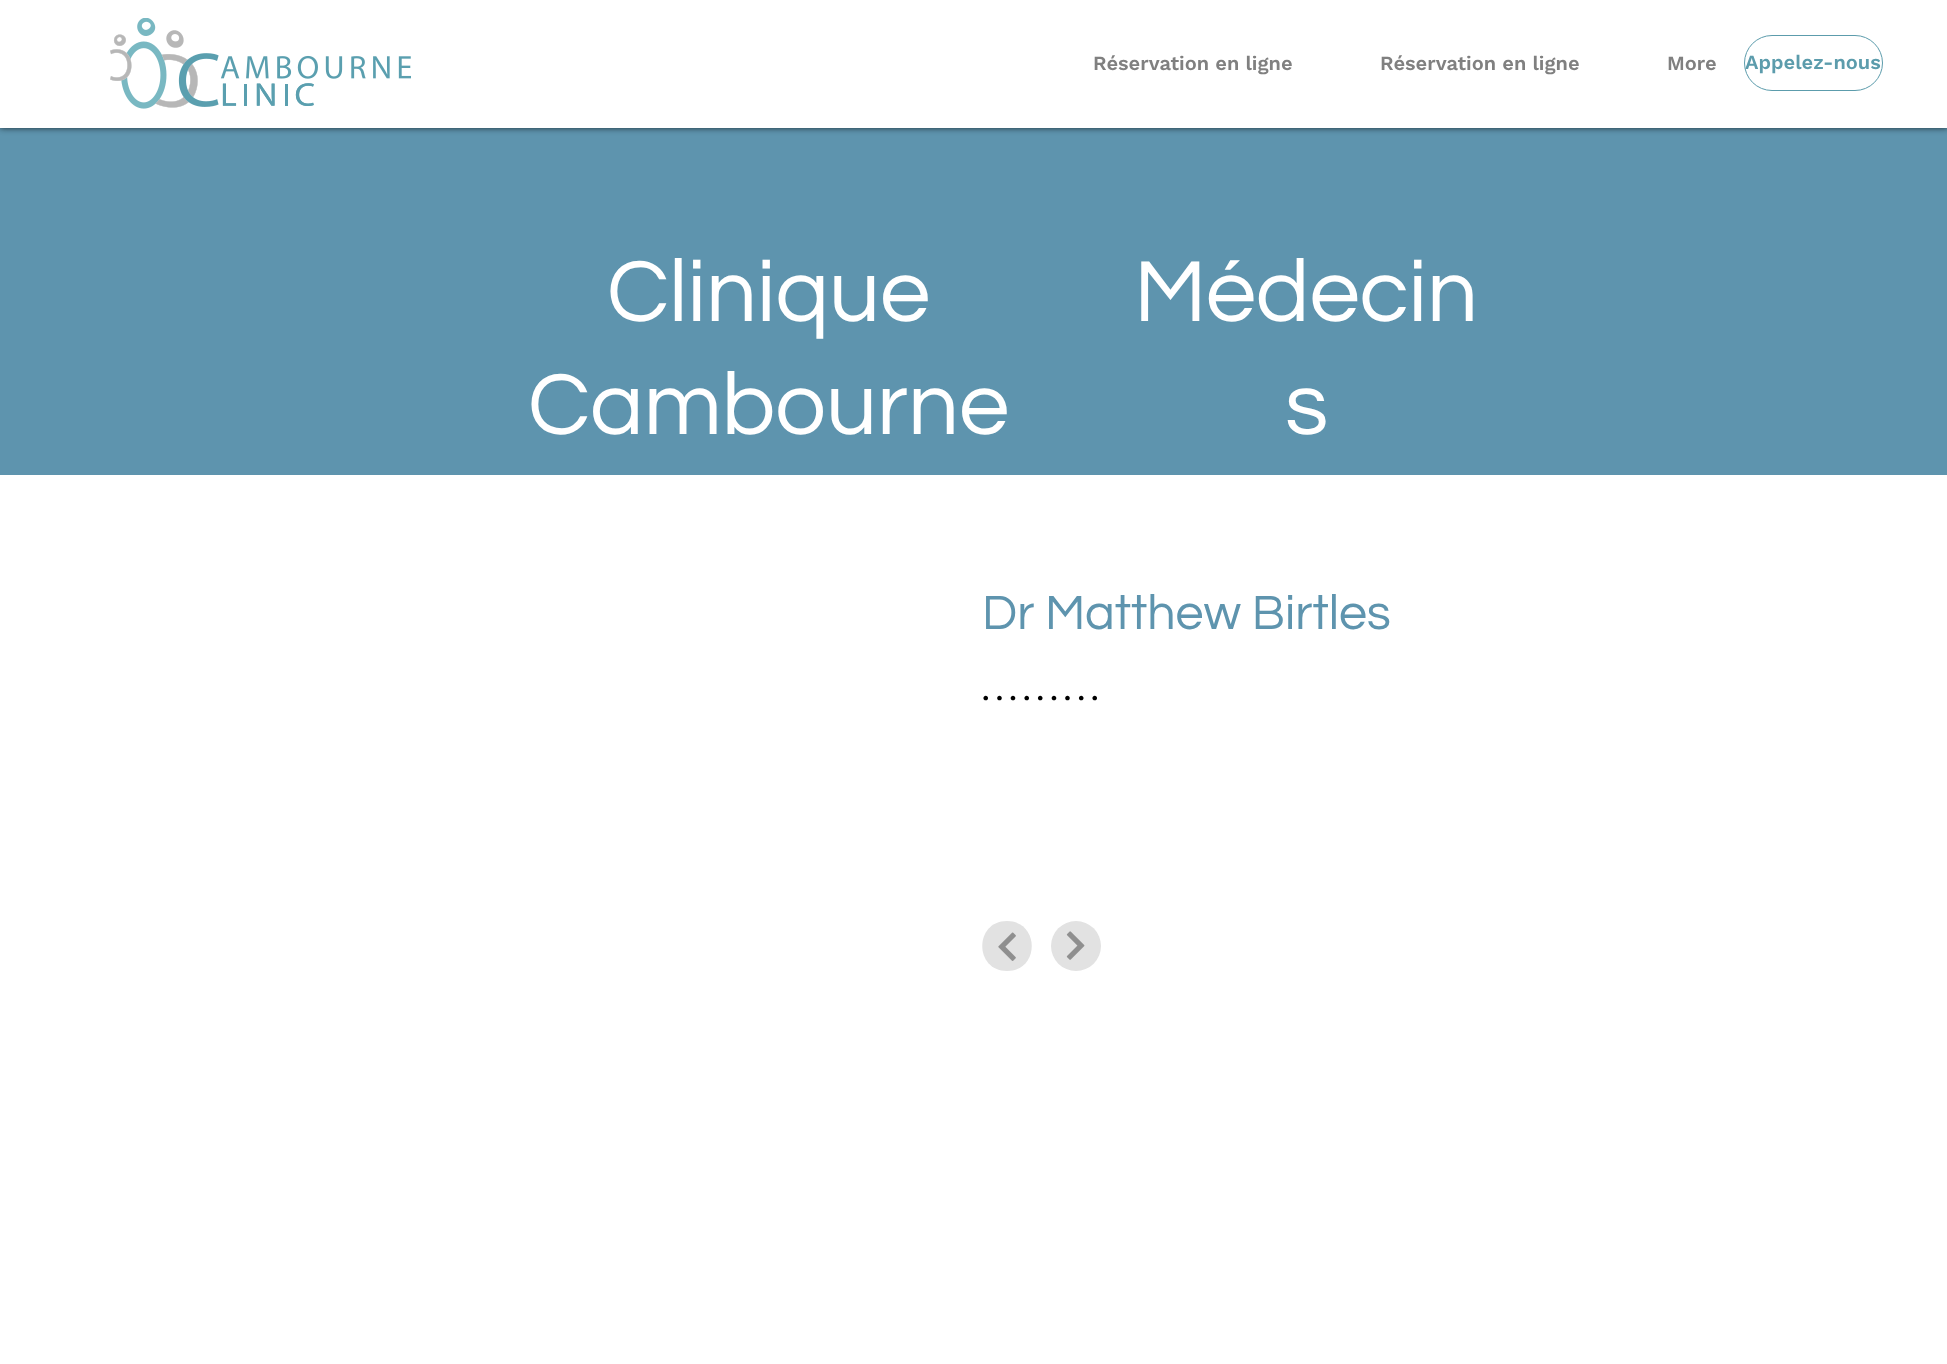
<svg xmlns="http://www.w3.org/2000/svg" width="1947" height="1364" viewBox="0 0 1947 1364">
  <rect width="100%" height="100%" fill="#fff"/>
  <path d="M0 128h1947v347H0z" fill="#5e94ae"/>
  <path d="M0 0h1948v128H0z" fill="#000000b3" filter="blur(3px)"/>
  <path d="M0 0h1947v128H0z" fill="#fff"/>
  <image x="110" y="18" width="301" height="91" href="img/1.png"/>
  <rect x="1744.5" y="35.5" width="138" height="55" rx="27.5" fill="none" stroke="#5c9cac"/>
  <path d="M1007 971C974 971 974 921 1007 921C1040 921 1040 971 1007 971Z" fill="#e2e2e2"/>
  <image x="998" y="932" width="18" height="29" href="img/2.png"/>
  <circle cx="1076" cy="946" r="25" fill="#e2e2e2"/>
  <image x="1066" y="931" width="19" height="29" href="img/3.png"/>
  <g font-family="Work Sans" font-size="20" font-weight="600" fill="#808080">
    <text x="1093" y="70">Réservation en ligne</text>
    <text x="1380" y="70">Réservation en ligne</text>
    <text x="1667" y="70">More</text>
  </g>
  <text x="1745" y="69" font-family="Work Sans" font-size="20" font-weight="600" fill="#5c9cac">Appelez-nous</text>
  <g font-family="Questrial" font-size="90" fill="#fff">
    <text x="607" y="321">Clinique</text>
    <text x="528" y="434">Cambourne</text>
    <text x="1134" y="321">Médecin</text>
    <text x="1285" y="434">s</text>
  </g>
  <text x="982" y="629" font-family="Questrial" font-size="50" fill="#5e94ae">Dr Matthew Birtles</text>
  <text x="982" y="700" font-family="Wix Madefor Text" font-size="27.5" font-weight="bold" fill="#000">. . . . . . . . .</text>
</svg>
